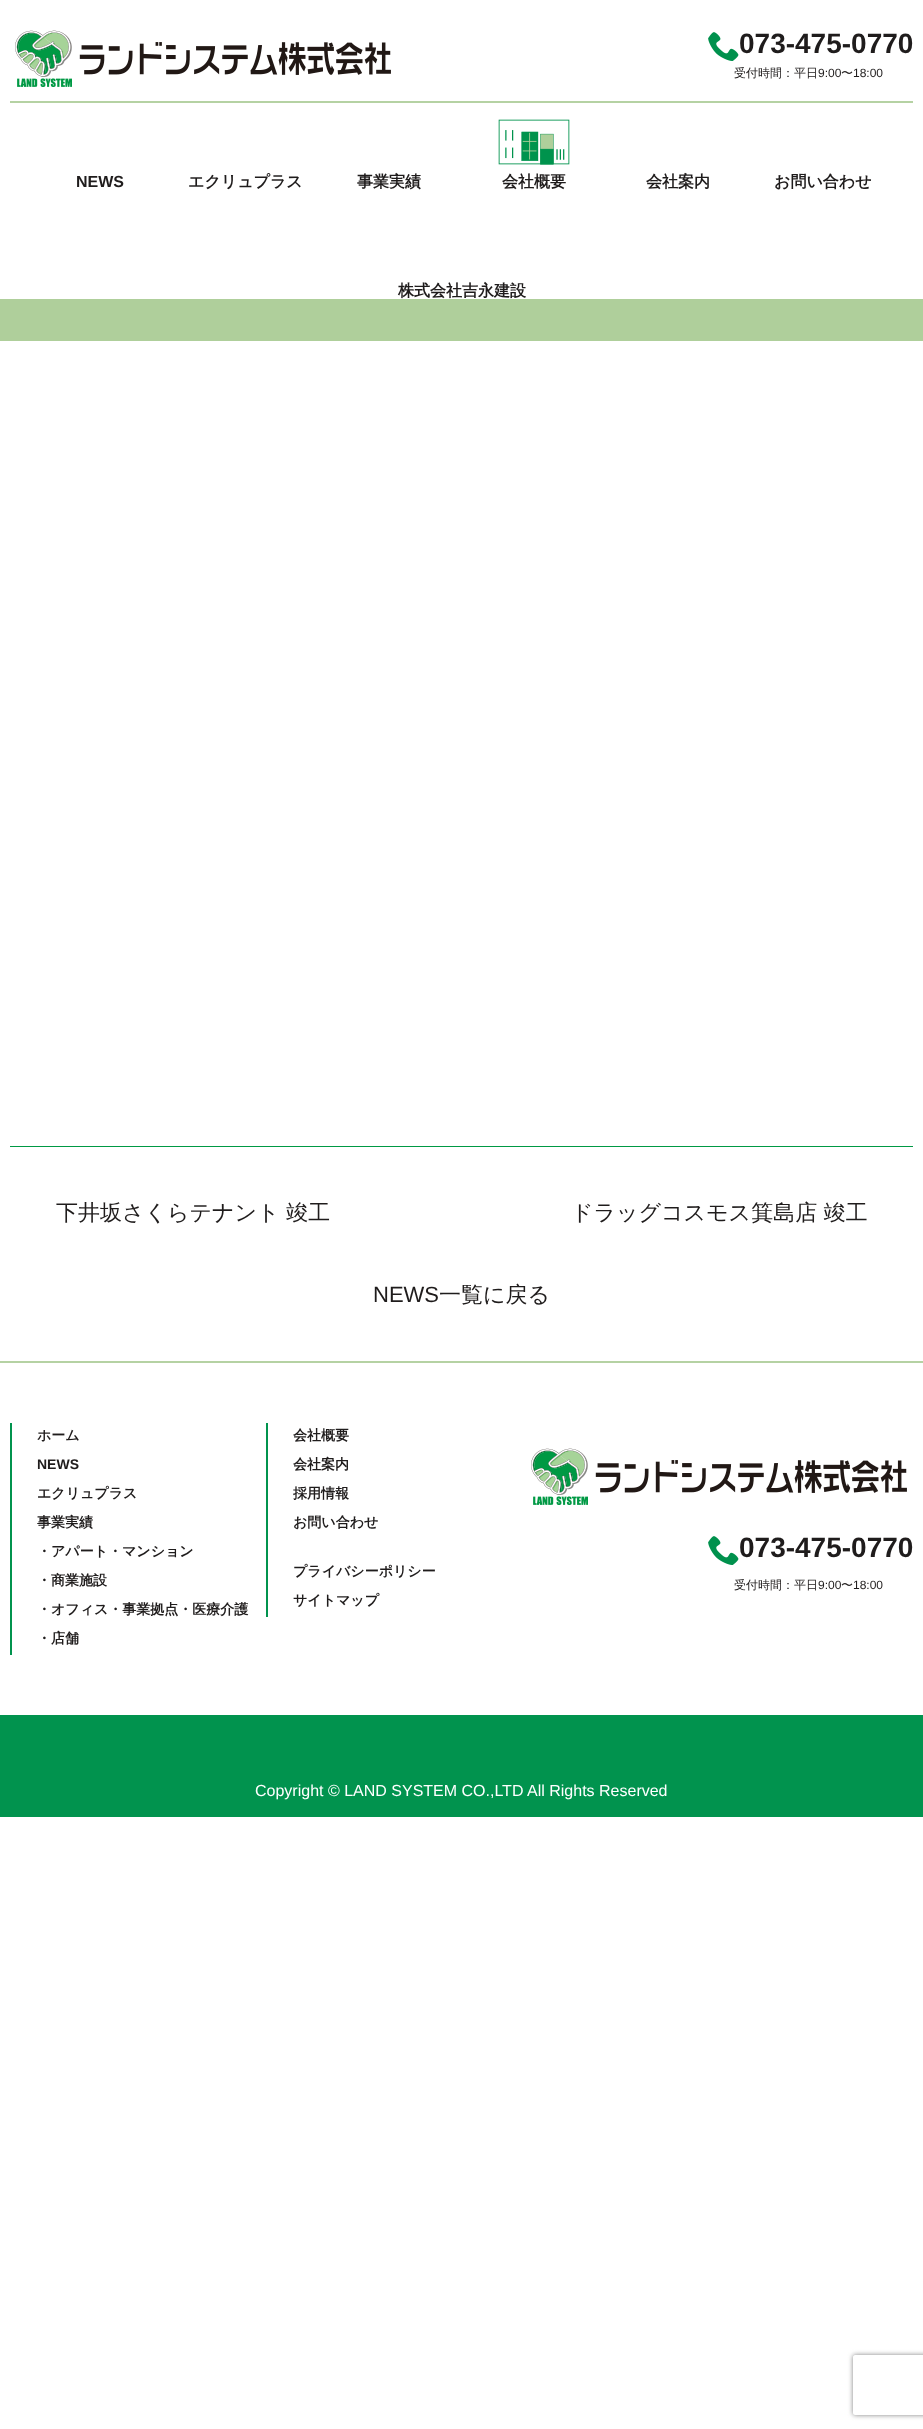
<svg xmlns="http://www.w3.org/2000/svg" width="923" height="2429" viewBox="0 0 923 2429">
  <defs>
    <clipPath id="clip1"><path d="M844 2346H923V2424H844ZM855 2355H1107C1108 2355 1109 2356 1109 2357V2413C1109 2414 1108 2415 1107 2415H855C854 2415 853 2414 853 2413V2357C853 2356 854 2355 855 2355Z" clip-rule="evenodd"/></clipPath>
  </defs>
  <rect width="100%" height="100%" fill="#fff"/>
  <path d="M10 101h903v2H10z" fill="#b5d2a3"/>
  <image x="15" y="30" width="376" height="57" href="img/1.png"/>
  <image x="708" y="32" width="31" height="29" href="img/2.png"/>
  <image x="498" y="119" width="72" height="46" href="img/3.png"/>
  <path d="M0 299h923v42H0z" fill="#afcf9b"/>
  <path d="M10 1146h903v1H10z" fill="#094"/>
  <path d="M0 1361h923v2H0z" fill="#b5d2a3"/>
  <path d="M10 1423h2v232H10z" fill="#01934e"/>
  <path d="M266 1423h2v194H266z" fill="#01934e"/>
  <image x="531" y="1448" width="376" height="57" href="img/1.png"/>
  <image x="708" y="1536" width="31" height="29" href="img/2.png"/>
  <path d="M0 1715h923v102H0z" fill="#01934e"/>
  <g clip-path="url(#clip1)">
    <rect x="853" y="2355" width="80" height="60" rx="2" fill="#808080" filter="blur(2.5px)"/>
  </g>
  <text x="739" y="53" font-family="Liberation Sans" font-size="28" font-weight="bold" fill="#1f1c1c">073-475-0770</text>
  <text x="734" y="77" font-family="WenQuanYi Zen Hei" font-size="12" font-weight="500" fill="#1f1c1c">受付時間：平日</text>
  <text x="818" y="77" font-family="Liberation Sans" font-size="12" fill="#1f1c1c">9:00</text>
  <text x="841" y="77" font-family="WenQuanYi Zen Hei" font-size="12" font-weight="500" fill="#1f1c1c">〜</text>
  <text x="853" y="77" font-family="Liberation Sans" font-size="12" fill="#1f1c1c">18:00</text>
  <text x="76" y="187" font-family="Liberation Sans" font-size="16" font-weight="bold" fill="#1f1c1c">NEWS</text>
  <g font-family="WenQuanYi Zen Hei" font-size="16" font-weight="bold" fill="#1f1c1c">
    <text x="188" y="187">エクリュプラス</text>
    <text x="357" y="187">事業実績</text>
    <text x="502" y="187">会社概要</text>
    <text x="646" y="187">会社案内</text>
    <text x="774" y="187">お問い合わせ</text>
    <text x="398" y="296">株式会社吉永建設</text>
  </g>
  <g font-family="WenQuanYi Zen Hei" font-size="22" font-weight="500" fill="#1f1c1c">
    <text x="56" y="1220">下井坂さくらテナント 竣工</text>
    <text x="571" y="1220">ドラッグコスモス箕島店 竣工</text>
  </g>
  <text x="373" y="1302" font-family="Liberation Sans" font-size="22" fill="#1f1c1c">NEWS</text>
  <text x="439" y="1302" font-family="WenQuanYi Zen Hei" font-size="22" font-weight="500" fill="#1f1c1c">一覧に戻る</text>
  <text x="37" y="1440" font-family="WenQuanYi Zen Hei" font-size="14" font-weight="bold" fill="#1f1c1c">ホーム</text>
  <text x="37" y="1469" font-family="Liberation Sans" font-size="14" font-weight="bold" fill="#1f1c1c">NEWS</text>
  <g font-family="WenQuanYi Zen Hei" font-size="14" font-weight="bold" fill="#1f1c1c">
    <text x="37" y="1498">エクリュプラス</text>
    <text x="37" y="1527">事業実績</text>
    <text x="37" y="1556">・アパート・マンション</text>
    <text x="37" y="1585">・商業施設</text>
    <text x="37" y="1614">・オフィス・事業拠点・医療介護</text>
    <text x="37" y="1643">・店舗</text>
    <text x="293" y="1440">会社概要</text>
    <text x="293" y="1469">会社案内</text>
    <text x="293" y="1498">採用情報</text>
    <text x="293" y="1527">お問い合わせ</text>
    <text x="293" y="1576">プライバシーポリシー</text>
    <text x="293" y="1605">サイトマップ</text>
  </g>
  <text x="739" y="1557" font-family="Liberation Sans" font-size="28" font-weight="bold" fill="#1f1c1c">073-475-0770</text>
  <text x="734" y="1589" font-family="WenQuanYi Zen Hei" font-size="12" font-weight="500" fill="#1f1c1c">受付時間：平日</text>
  <text x="818" y="1589" font-family="Liberation Sans" font-size="12" fill="#1f1c1c">9:00</text>
  <text x="841" y="1589" font-family="WenQuanYi Zen Hei" font-size="12" font-weight="500" fill="#1f1c1c">〜</text>
  <text x="853" y="1589" font-family="Liberation Sans" font-size="12" fill="#1f1c1c">18:00</text>
  <text x="255" y="1796" font-family="Liberation Sans" font-size="16" fill="#fff">Copyright © LAND SYSTEM CO.,LTD All Rights Reserved</text>
</svg>
